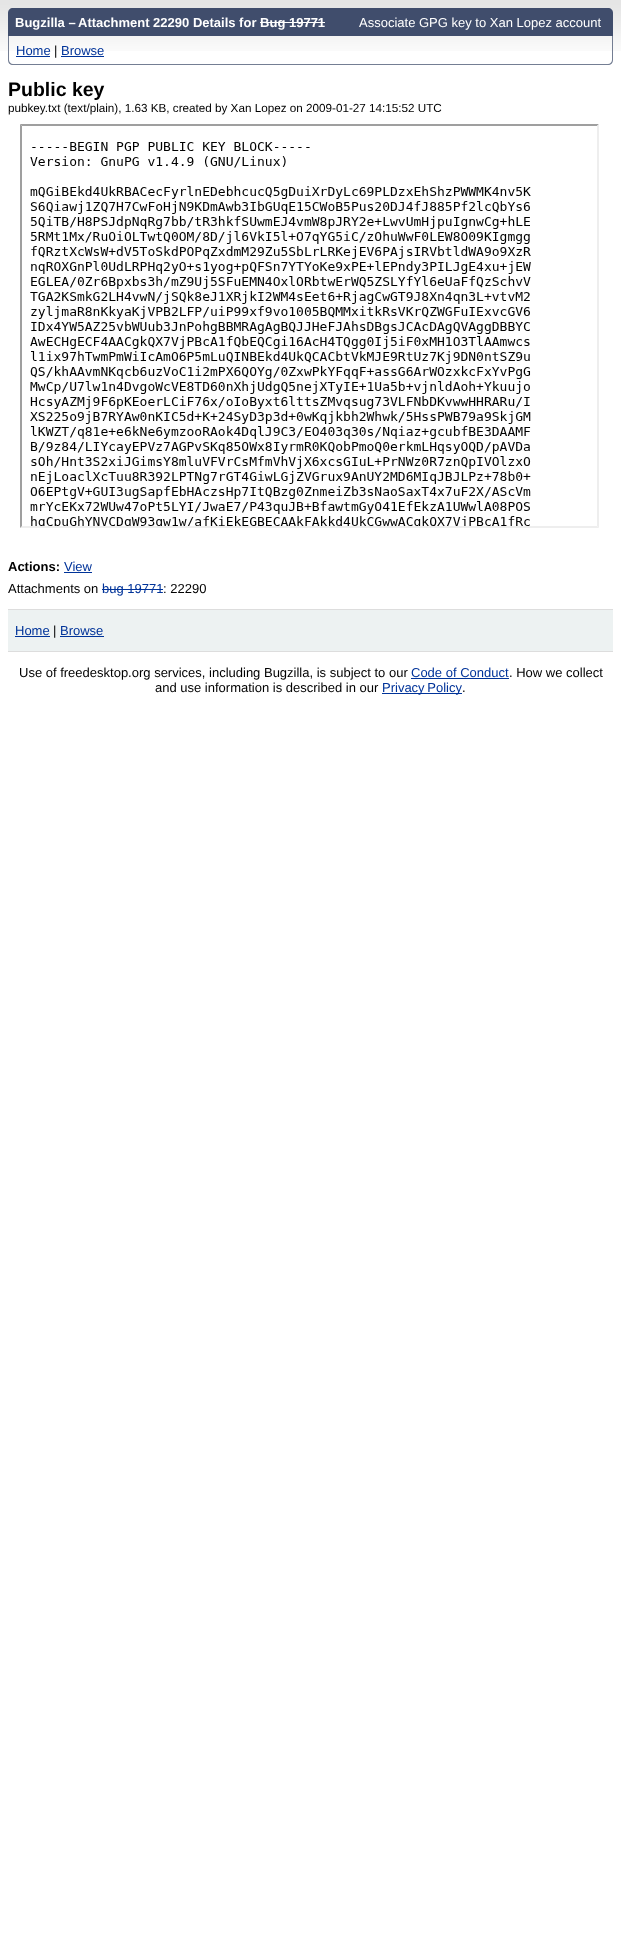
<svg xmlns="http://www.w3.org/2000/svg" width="621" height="1941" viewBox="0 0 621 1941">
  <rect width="100%" height="100%" fill="#fff"/>
  <image x="0" y="0" width="621" height="51" href="img/1.png"/>
  <path d="M13 8H608C611 8 613 10 613 13V36H8V13C8 10 10 8 13 8Z" fill="#404d6c"/>
  <path d="M260 22h65v1H260z" fill="#fff"/>
  <path d="M8 36H613V60C613 63 611 65 608 65H13C10 65 8 63 8 60ZM9 36H612V60C612 62 610 64 608 64H13C11 64 9 62 9 60Z" fill="#747e93" fill-rule="evenodd"/>
  <path d="M16 56h34v1H16z" fill="#039"/>
  <path d="M61 56h43v1H61z" fill="#039"/>
  <path d="M20 124H599L597 126H22Z" fill="#9f9f9f"/>
  <path d="M599 124V528L597 526V126Z" fill="#eee"/>
  <path d="M599 528H20L22 526H597Z" fill="#eee"/>
  <path d="M20 528V124L22 126V526Z" fill="#9f9f9f"/>
  <image x="30" y="142" width="501" height="384" href="img/2.png"/>
  <path d="M64 572h28v1H64z" fill="#039"/>
  <path d="M102 589h61v1H102z" fill="#039"/>
  <path d="M8 610h605v41H8z" fill="#edf2f2"/>
  <path d="M8 609h605v1H8z" fill="#ddd"/>
  <path d="M8 651h605v1H8z" fill="#ddd"/>
  <path d="M15 636h35v1H15z" fill="#039"/>
  <path d="M60 636h44v1H60z" fill="#039"/>
  <path d="M411 678h98v1H411z" fill="#039"/>
  <path d="M382 693h80v1H382z" fill="#039"/>
  <g font-family="Liberation Sans" font-size="13" font-weight="bold" fill="#fff">
    <text x="15" y="27">Bugzilla –</text>
    <text x="78" y="27">Attachment 22290 Details for Bug 19771</text>
  </g>
  <text x="359" y="27" font-family="Liberation Sans" font-size="13" fill="#fff">Associate GPG key to Xan Lopez account</text>
  <text x="16" y="55" font-family="Liberation Sans" font-size="13" fill="#039">Home</text>
  <text x="54" y="55" font-family="Liberation Sans" font-size="13" fill="#000">|</text>
  <text x="61" y="55" font-family="Liberation Sans" font-size="13" fill="#039">Browse</text>
  <text x="8" y="96" font-family="Liberation Sans" font-size="19.5" font-weight="bold" fill="#000">Public key</text>
  <text x="8" y="112" font-family="Liberation Sans" font-size="11.7" fill="#000">pubkey.txt (text/plain), 1.63 KB, created by Xan Lopez on 2009-01-27 14:15:52 UTC</text>
  <text x="8" y="571" font-family="Liberation Sans" font-size="13" font-weight="bold" fill="#000">Actions:</text>
  <text x="64" y="571" font-family="Liberation Sans" font-size="13" fill="#039">View</text>
  <text x="8" y="593" font-family="Liberation Sans" font-size="13" fill="#000">Attachments on</text>
  <text x="102" y="593" font-family="Liberation Sans" font-size="13" fill="#039">bug 19771</text>
  <text x="163" y="593" font-family="Liberation Sans" font-size="13" fill="#000">: 22290</text>
  <text x="15" y="635" font-family="Liberation Sans" font-size="13" fill="#039">Home</text>
  <text x="53" y="635" font-family="Liberation Sans" font-size="13" fill="#000">|</text>
  <text x="60" y="635" font-family="Liberation Sans" font-size="13" fill="#039">Browse</text>
  <text x="19" y="677" font-family="Liberation Sans" font-size="13" fill="#000">Use of freedesktop.org services, including Bugzilla, is subject to our</text>
  <text x="411" y="677" font-family="Liberation Sans" font-size="13" fill="#039">Code of Conduct</text>
  <g font-family="Liberation Sans" font-size="13" fill="#000">
    <text x="509" y="677">. How we collect</text>
    <text x="155" y="692">and use information is described in our</text>
  </g>
  <text x="382" y="692" word-spacing="-1" font-family="Liberation Sans" font-size="13" fill="#039">Privacy Policy</text>
  <text x="462" y="692" font-family="Liberation Sans" font-size="13" fill="#000">.</text>
</svg>
